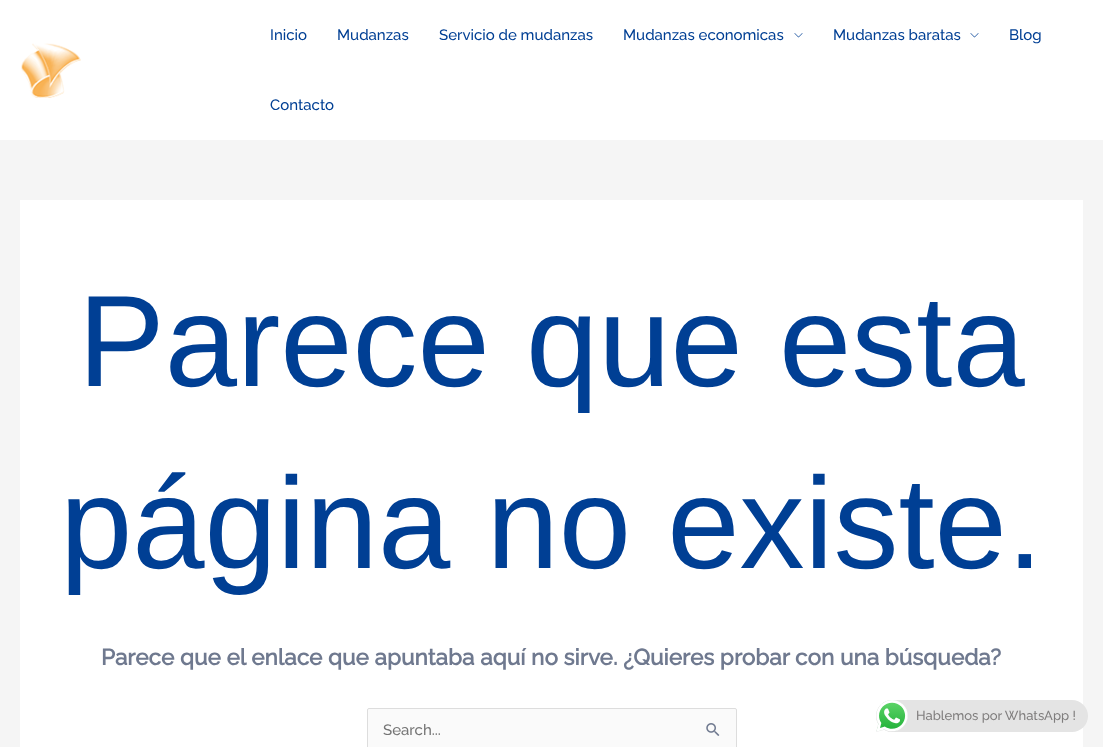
<svg xmlns="http://www.w3.org/2000/svg" width="1103" height="747" viewBox="0 0 1103 747">
  <rect width="100%" height="100%" fill="#f5f5f5"/>
  <path d="M0 0h1103v140H0z" fill="#fff"/>
  <image x="21" y="43" width="60" height="55" href="img/1.png"/>
  <image x="794" y="33" width="9" height="5" href="img/2.png"/>
  <image x="970" y="33" width="9" height="5" href="img/2.png"/>
  <path d="M20 200h1063v547H20z" fill="#fff"/>
  <rect x="367.5" y="708.5" width="369" height="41" rx="1.5" fill="#fafafa" stroke="#ddd"/>
  <image x="706" y="723" width="14" height="13" href="img/3.png"/>
  <rect x="876" y="700" width="212" height="32" rx="16" fill="#e4e4e4"/>
  <image x="876" y="700" width="32" height="32" href="img/4.png"/>
  <g font-family="Raleway" font-size="15" font-weight="100" fill="#003f94">
    <text x="270" y="40">Inicio</text>
    <text x="337" y="40">Mudanzas</text>
    <text x="439" y="40">Servicio de mudanzas</text>
    <text x="623" y="40">Mudanzas economicas</text>
    <text x="833" y="40">Mudanzas baratas</text>
    <text x="1009" y="40">Blog</text>
    <text x="270" y="110">Contacto</text>
  </g>
  <g font-family="Liberation Sans" font-size="130" fill="#003f94">
    <text x="78" y="386">Parece que esta</text>
    <text x="60" y="568">página no existe.</text>
  </g>
  <text x="101" y="665" font-family="Raleway" font-size="22.5" font-weight="bold" fill="#6f798f">Parece que el enlace que apuntaba aquí no sirve. ¿Quieres probar con una búsqueda?</text>
  <text x="383" y="735" font-family="Raleway" font-size="15" font-weight="100" fill="#757575">Search...</text>
  <text x="916" y="720" font-family="Raleway" font-size="13" font-weight="100" fill="#7f7d7d">Hablemos por WhatsApp !</text>
</svg>
